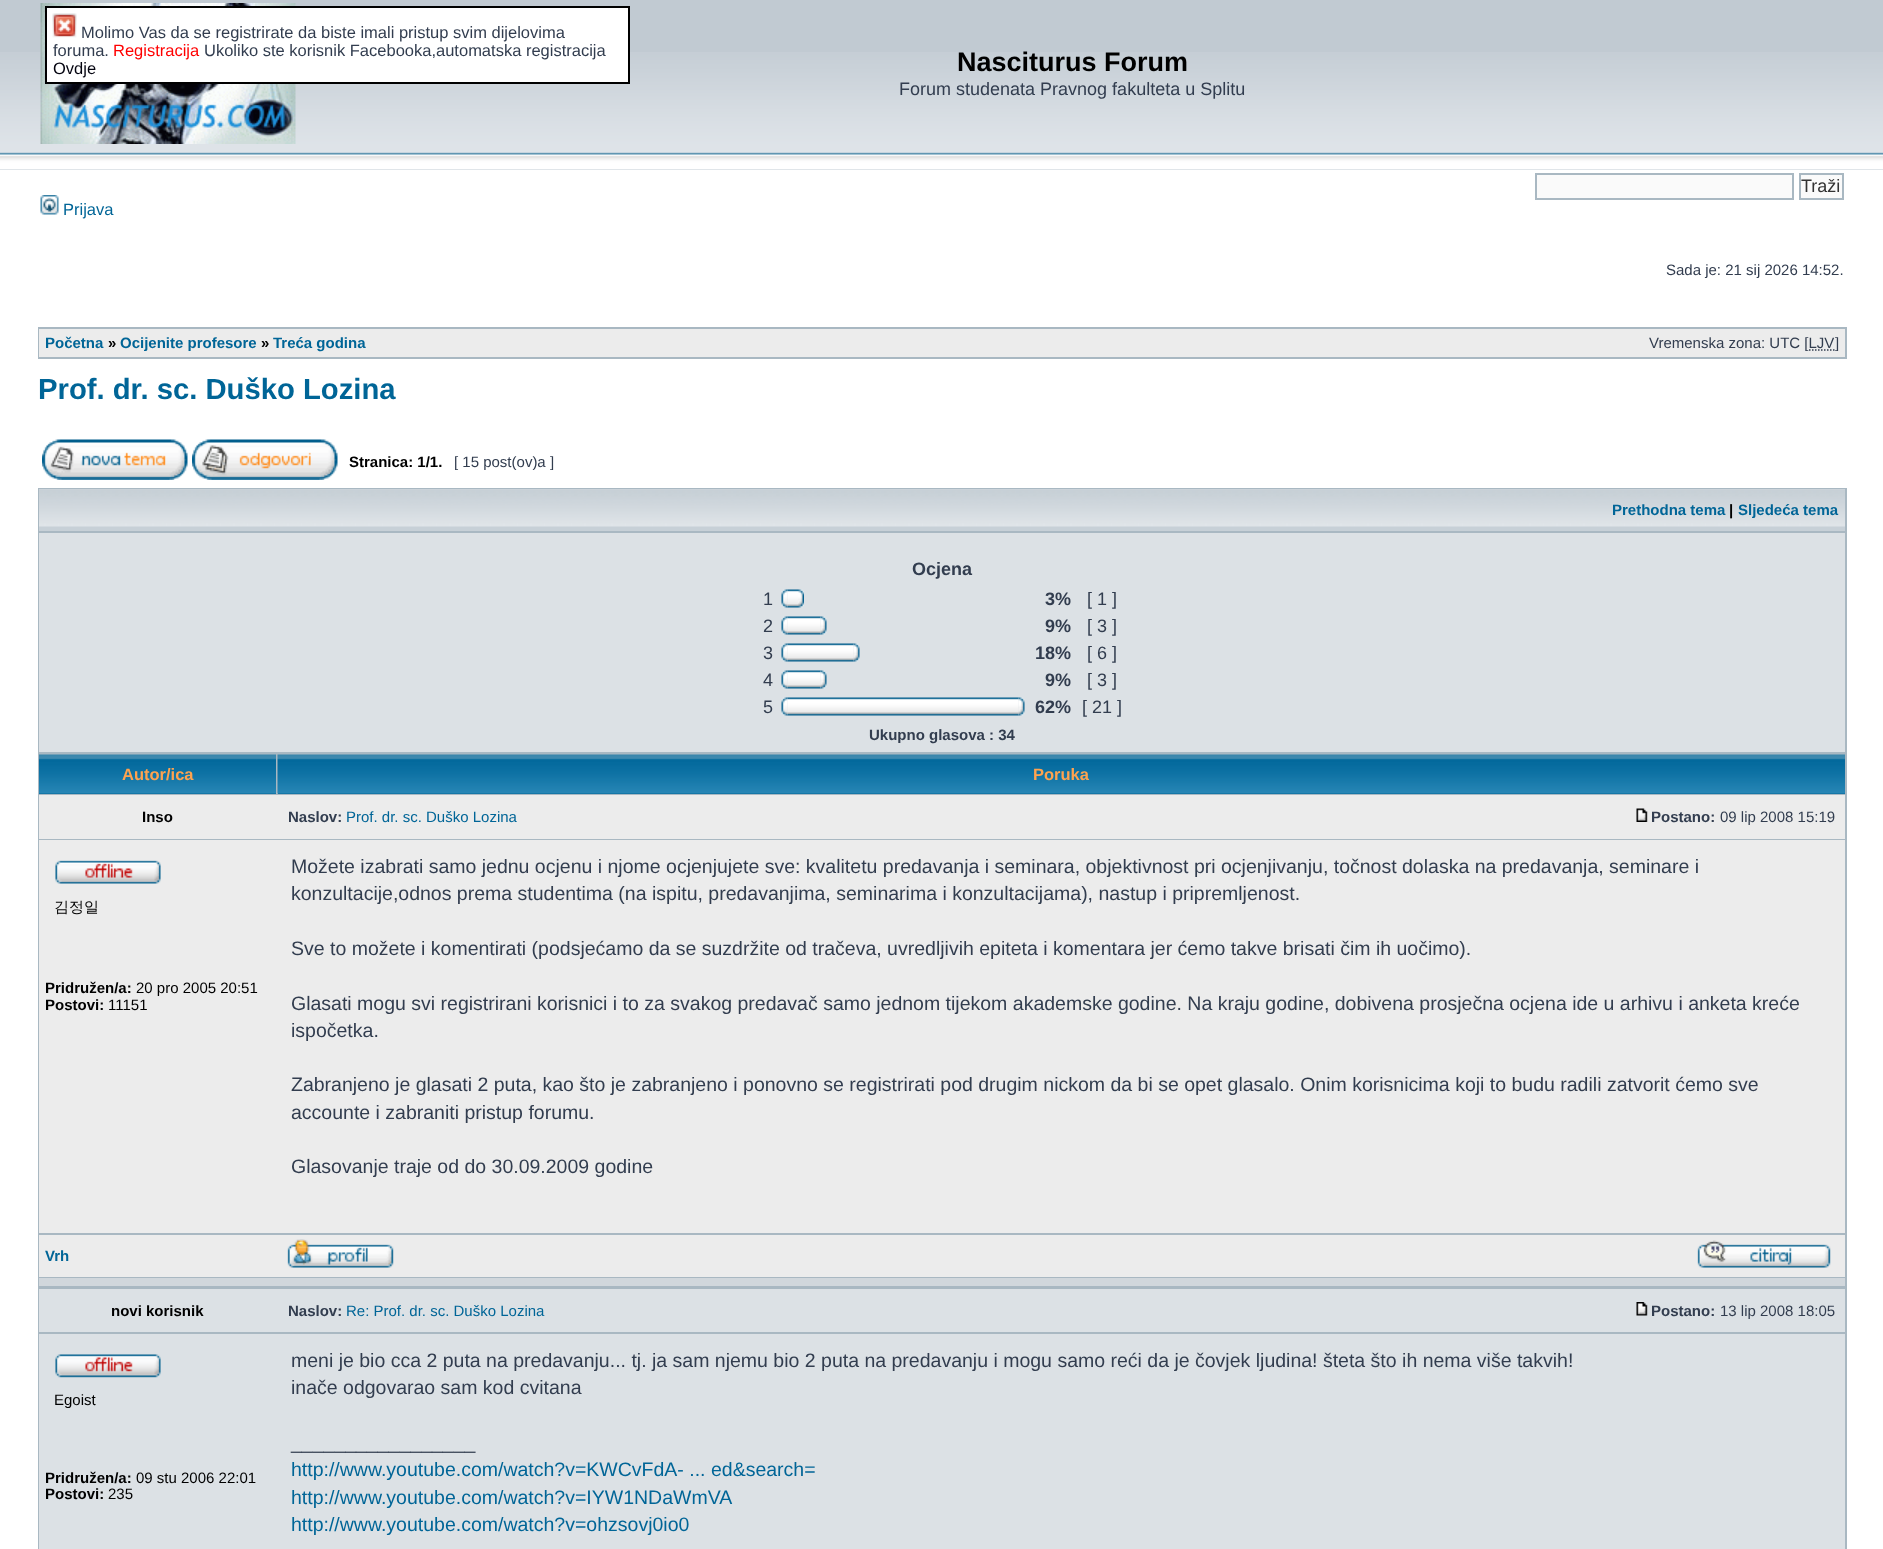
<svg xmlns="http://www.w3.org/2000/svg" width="1883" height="1549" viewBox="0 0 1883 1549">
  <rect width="100%" height="100%" fill="#fff"/>
  <path d="M0 0h1883v170H0z" fill="#c1cad2"/>
  <image x="0" y="52" width="1883" height="118" href="img/3.png"/>
  <image x="40" y="3" width="256" height="141" href="img/4.png"/>
  <path d="M46 7h583v76H46z" fill="#fff" stroke="#000" stroke-width="2"/>
  <image x="52" y="13" width="25" height="25" href="img/1.png"/>
  <image x="40" y="195" width="19" height="20" href="img/2.png"/>
  <path d="M1536 174h257v25H1536z" fill="#fafafa" stroke="#a9b8c2" stroke-width="2"/>
  <path d="M1800 174h43v25H1800z" fill="#fafafa" stroke="#a9b8c2" stroke-width="2"/>
  <path d="M38 327h1809v32H38z" fill="#a9b8c2"/>
  <path d="M39 329h1806v28H39z" fill="#ececec"/>
  <path d="M1809 350H1835" fill="none" stroke="#323d4f" stroke-width="1.5" stroke-dasharray="1.5 1.5"/>
  <image x="42" y="439" width="146" height="41" href="img/5.png"/>
  <image x="192" y="439" width="146" height="41" href="img/6.png"/>
  <path d="M38 488h1809v1061H38z" fill="#a9b8c2"/>
  <path d="M39 527h1806v4H39z" fill="#c7d0d7"/>
  <image x="39" y="489" width="1806" height="38" href="img/7.png"/>
  <path d="M39 533h1806v219H39z" fill="#dce1e5"/>
  <image x="781" y="589" width="7" height="19" href="img/8.png"/>
  <image x="787" y="589" width="11" height="19" href="img/9.png"/>
  <image x="798" y="589" width="6" height="19" href="img/10.png"/>
  <image x="781" y="616" width="7" height="19" href="img/8.png"/>
  <image x="787" y="616" width="34" height="19" href="img/11.png"/>
  <image x="820" y="616" width="7" height="19" href="img/12.png"/>
  <image x="781" y="643" width="7" height="19" href="img/8.png"/>
  <image x="787" y="643" width="67" height="19" href="img/13.png"/>
  <image x="853" y="643" width="7" height="19" href="img/12.png"/>
  <image x="781" y="670" width="7" height="19" href="img/8.png"/>
  <image x="787" y="670" width="34" height="19" href="img/11.png"/>
  <image x="820" y="670" width="7" height="19" href="img/12.png"/>
  <image x="781" y="697" width="7" height="19" href="img/8.png"/>
  <image x="787" y="697" width="232" height="19" href="img/14.png"/>
  <image x="1018" y="697" width="7" height="19" href="img/12.png"/>
  <path d="M39 793h237v1H39z" fill="#069"/>
  <image x="39" y="754" width="237" height="40" href="img/15.png"/>
  <path d="M278 793h1567v1H278z" fill="#069"/>
  <image x="277" y="754" width="1568" height="40" href="img/16.png"/>
  <path d="M39 795h1806v44H39z" fill="#ececec"/>
  <image x="1636" y="808" width="12" height="14" href="img/17.png"/>
  <path d="M39 840h1806v393H39z" fill="#ececec"/>
  <image x="55" y="860" width="106" height="24" href="img/18.png"/>
  <path d="M39 1235h1806v42H39z" fill="#ececec"/>
  <image x="287" y="1239" width="107" height="29" href="img/19.png"/>
  <image x="1697" y="1240" width="134" height="28" href="img/20.png"/>
  <path d="M39 1278h1806v8H39z" fill="#d1d7dc"/>
  <path d="M39 1289h1806v43H39z" fill="#dce1e5"/>
  <image x="1636" y="1302" width="12" height="14" href="img/21.png"/>
  <path d="M39 1334h1806v215H39z" fill="#dce1e5"/>
  <image x="55" y="1354" width="106" height="24" href="img/22.png"/>
  <g font-family="Liberation Sans" font-size="16.5" fill="#323d4f">
    <text x="81" y="38">Molimo Vas da se registrirate da biste imali pristup svim dijelovima</text>
    <text x="53" y="56">foruma.</text>
  </g>
  <text x="113" y="56" font-family="Liberation Sans" font-size="16.5" fill="#f00">Registracija</text>
  <text x="204" y="56" font-family="Liberation Sans" font-size="16.5" fill="#323d4f">Ukoliko ste korisnik Facebooka,automatska registracija</text>
  <text x="53" y="74" font-family="Liberation Sans" font-size="16.5" fill="#03030f">Ovdje</text>
  <text x="63" y="215" font-family="Liberation Sans" font-size="16.5" fill="#006597">Prijava</text>
  <text x="1801" y="192" font-family="Liberation Sans" font-size="18" fill="#333">Traži</text>
  <text x="957" y="71" font-family="Liberation Sans" font-size="27" font-weight="bold" fill="#000">Nasciturus Forum</text>
  <text x="899" y="95" font-family="Liberation Sans" font-size="18" fill="#323d4f">Forum studenata Pravnog fakulteta u Splitu</text>
  <text x="1666" y="275" font-family="Liberation Sans" font-size="15" fill="#323d4f">Sada je: 21 sij 2026 14:52.</text>
  <text x="45" y="348" font-family="Liberation Sans" font-size="15" font-weight="bold" fill="#006597">Početna</text>
  <text x="108" y="348" font-family="Liberation Sans" font-size="15" font-weight="bold" fill="#000">»</text>
  <text x="120" y="348" font-family="Liberation Sans" font-size="15" font-weight="bold" fill="#006597">Ocijenite profesore</text>
  <text x="261" y="348" font-family="Liberation Sans" font-size="15" font-weight="bold" fill="#000">»</text>
  <text x="273" y="348" font-family="Liberation Sans" font-size="15" font-weight="bold" fill="#006597">Treća godina</text>
  <g font-family="Liberation Sans" font-size="15" fill="#323d4f">
    <text x="1649" y="348">Vremenska zona: UTC [LJV</text>
    <text x="1835" y="348">]</text>
  </g>
  <text x="38" y="399" font-family="Liberation Sans" font-size="29.25" font-weight="bold" fill="#006597">Prof. dr. sc. Duško Lozina</text>
  <text x="349" y="467" font-family="Liberation Sans" font-size="15" font-weight="bold" fill="#000">Stranica: 1/1.</text>
  <text x="454" y="467" font-family="Liberation Sans" font-size="15" fill="#323d4f">[ 15 post(ov)a ]</text>
  <text x="1612" y="515" font-family="Liberation Sans" font-size="15" font-weight="bold" fill="#006597">Prethodna tema</text>
  <text x="1729" y="515" font-family="Liberation Sans" font-size="15" font-weight="bold" fill="#000">|</text>
  <text x="1738" y="515" font-family="Liberation Sans" font-size="15" font-weight="bold" fill="#006597">Sljedeća tema</text>
  <text x="912" y="575" font-family="Liberation Sans" font-size="18" font-weight="bold" fill="#323d4f">Ocjena</text>
  <text x="763" y="605" font-family="Liberation Sans" font-size="18" fill="#323d4f">1</text>
  <text x="1045" y="605" font-family="Liberation Sans" font-size="18" font-weight="bold" fill="#323d4f">3%</text>
  <g font-family="Liberation Sans" font-size="18" fill="#323d4f">
    <text x="1087" y="605">[ 1 ]</text>
    <text x="763" y="632">2</text>
  </g>
  <text x="1045" y="632" font-family="Liberation Sans" font-size="18" font-weight="bold" fill="#323d4f">9%</text>
  <g font-family="Liberation Sans" font-size="18" fill="#323d4f">
    <text x="1087" y="632">[ 3 ]</text>
    <text x="763" y="659">3</text>
  </g>
  <text x="1035" y="659" font-family="Liberation Sans" font-size="18" font-weight="bold" fill="#323d4f">18%</text>
  <g font-family="Liberation Sans" font-size="18" fill="#323d4f">
    <text x="1087" y="659">[ 6 ]</text>
    <text x="763" y="686">4</text>
  </g>
  <text x="1045" y="686" font-family="Liberation Sans" font-size="18" font-weight="bold" fill="#323d4f">9%</text>
  <g font-family="Liberation Sans" font-size="18" fill="#323d4f">
    <text x="1087" y="686">[ 3 ]</text>
    <text x="763" y="713">5</text>
  </g>
  <text x="1035" y="713" font-family="Liberation Sans" font-size="18" font-weight="bold" fill="#323d4f">62%</text>
  <text x="1082" y="713" font-family="Liberation Sans" font-size="18" fill="#323d4f">[ 21 ]</text>
  <text x="869" y="740" font-family="Liberation Sans" font-size="15" font-weight="bold" fill="#323d4f">Ukupno glasova : 34</text>
  <g font-family="Liberation Sans" font-size="16.5" font-weight="bold" fill="#ffa34f">
    <text x="122" y="780">Autor/ica</text>
    <text x="1033" y="780">Poruka</text>
  </g>
  <text x="142" y="822" font-family="Liberation Sans" font-size="15" font-weight="bold" fill="#000">Inso</text>
  <text x="288" y="822" font-family="Liberation Sans" font-size="15" font-weight="bold" fill="#323d4f">Naslov:</text>
  <text x="346" y="822" font-family="Liberation Sans" font-size="15" fill="#006597">Prof. dr. sc. Duško Lozina</text>
  <text x="1651" y="822" font-family="Liberation Sans" font-size="15" font-weight="bold" fill="#323d4f">Postano:</text>
  <text x="1720" y="822" font-family="Liberation Sans" font-size="15" fill="#323d4f">09 lip 2008 15:19</text>
  <text x="54" y="912" font-family="WenQuanYi Zen Hei" font-size="15" font-weight="500" fill="#000">김정일</text>
  <text x="45" y="993" font-family="Liberation Sans" font-size="15" font-weight="bold" fill="#000">Pridružen/a:</text>
  <text x="136" y="993" font-family="Liberation Sans" font-size="15" fill="#000">20 pro 2005 20:51</text>
  <text x="45" y="1010" font-family="Liberation Sans" font-size="15" font-weight="bold" fill="#000">Postovi:</text>
  <text x="108" y="1010" font-family="Liberation Sans" font-size="15" fill="#000">11151</text>
  <g font-family="Liberation Sans" font-size="19.5" fill="#323d4f">
    <text x="291" y="873">Možete izabrati samo jednu ocjenu i njome ocjenjujete sve: kvalitetu predavanja i seminara, objektivnost pri ocjenjivanju, točnost dolaska na predavanja, seminare i</text>
    <text x="291" y="900">konzultacije,odnos prema studentima (na ispitu, predavanjima, seminarima i konzultacijama), nastup i pripremljenost.</text>
    <text x="291" y="955">Sve to možete i komentirati (podsjećamo da se suzdržite od tračeva, uvredljivih epiteta i komentara jer ćemo takve brisati čim ih uočimo).</text>
    <text x="291" y="1010">Glasati mogu svi registrirani korisnici i to za svakog predavač samo jednom tijekom akademske godine. Na kraju godine, dobivena prosječna ocjena ide u arhivu i anketa kreće</text>
    <text x="291" y="1037">ispočetka.</text>
    <text x="291" y="1091">Zabranjeno je glasati 2 puta, kao što je zabranjeno i ponovno se registrirati pod drugim nickom da bi se opet glasalo. Onim korisnicima koji to budu radili zatvorit ćemo sve</text>
    <text x="291" y="1119">accounte i zabraniti pristup forumu.</text>
    <text x="291" y="1173">Glasovanje traje od do 30.09.2009 godine</text>
  </g>
  <text x="45" y="1261" font-family="Liberation Sans" font-size="15" font-weight="bold" fill="#006597">Vrh</text>
  <text x="111" y="1316" font-family="Liberation Sans" font-size="15" font-weight="bold" fill="#000">novi korisnik</text>
  <text x="288" y="1316" font-family="Liberation Sans" font-size="15" font-weight="bold" fill="#323d4f">Naslov:</text>
  <text x="346" y="1316" font-family="Liberation Sans" font-size="15" fill="#006597">Re: Prof. dr. sc. Duško Lozina</text>
  <text x="1651" y="1316" font-family="Liberation Sans" font-size="15" font-weight="bold" fill="#323d4f">Postano:</text>
  <text x="1720" y="1316" font-family="Liberation Sans" font-size="15" fill="#323d4f">13 lip 2008 18:05</text>
  <text x="54" y="1405" font-family="Liberation Sans" font-size="15" fill="#000">Egoist</text>
  <text x="45" y="1483" font-family="Liberation Sans" font-size="15" font-weight="bold" fill="#000">Pridružen/a:</text>
  <text x="136" y="1483" font-family="Liberation Sans" font-size="15" fill="#000">09 stu 2006 22:01</text>
  <text x="45" y="1499" font-family="Liberation Sans" font-size="15" font-weight="bold" fill="#000">Postovi:</text>
  <text x="108" y="1499" font-family="Liberation Sans" font-size="15" fill="#000">235</text>
  <g font-family="Liberation Sans" font-size="19.5" fill="#323d4f">
    <text x="291" y="1367">meni je bio cca 2 puta na predavanju... tj. ja sam njemu bio 2 puta na predavanju i mogu samo reći da je čovjek ljudina! šteta što ih nema više takvih!</text>
    <text x="291" y="1394">inače odgovarao sam kod cvitana</text>
    <text x="291" y="1449">_________________</text>
  </g>
  <g font-family="Liberation Sans" font-size="19.5" fill="#006597">
    <text x="291" y="1476">http://www.youtube.com/watch?v=KWCvFdA- ... ed&amp;search=</text>
    <text x="291" y="1504">http://www.youtube.com/watch?v=IYW1NDaWmVA</text>
    <text x="291" y="1531">http://www.youtube.com/watch?v=ohzsovj0io0</text>
  </g>
</svg>
